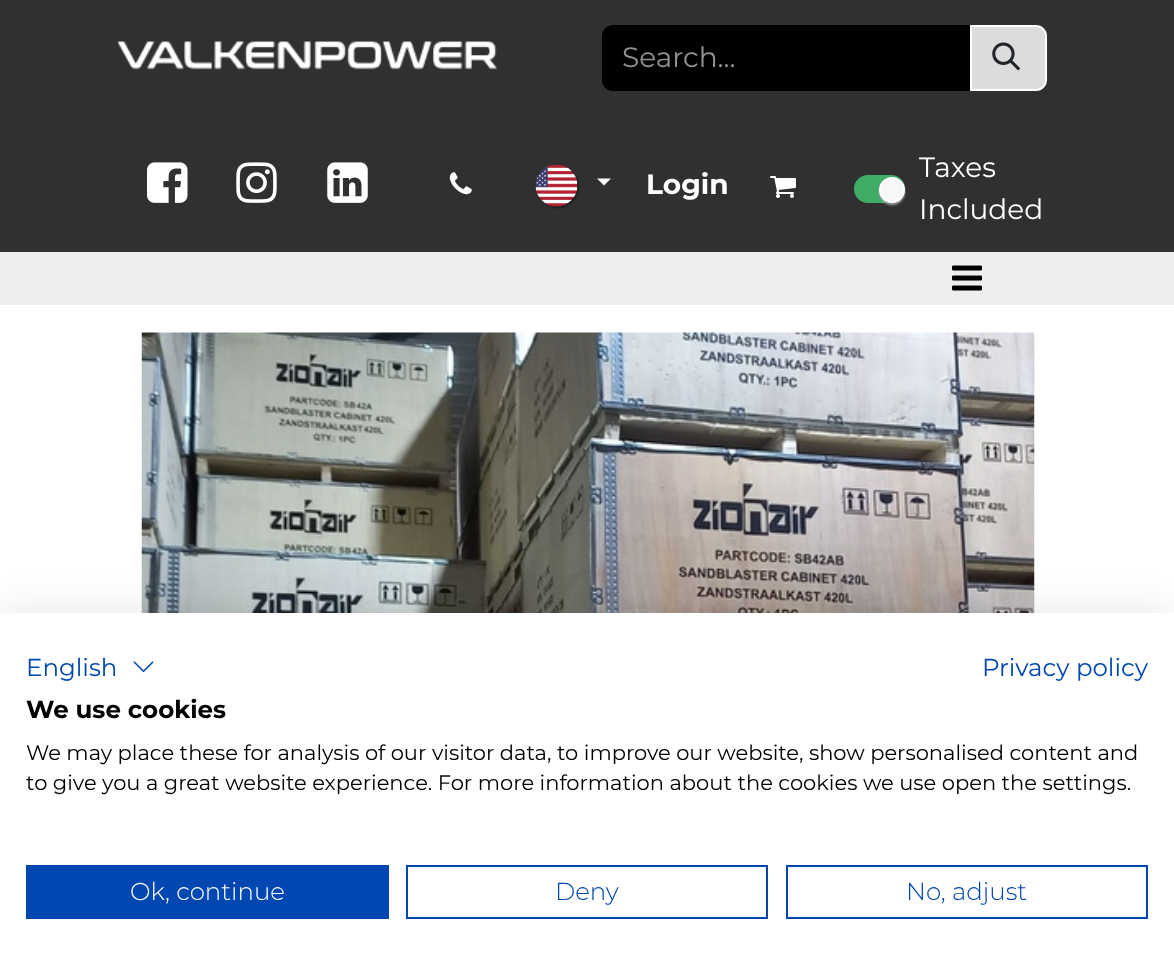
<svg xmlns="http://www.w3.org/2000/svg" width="1174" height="965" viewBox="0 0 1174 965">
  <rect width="100%" height="100%" fill="#fff"/>
  <path d="M0 0h1174v252H0z" fill="#303030"/>
  <image x="117" y="41" width="380" height="29" href="img/1.png"/>
  <path d="M613 25H971V91H613C607 91 602 86 602 80V36C602 30 607 25 613 25Z" fill="#000"/>
  <path d="M971 26H1036C1041.5 26 1046 30.5 1046 36V80C1046 85.5 1041.5 90 1036 90H971Z" fill="#dcdcdc" stroke="#fff" stroke-width="2"/>
  <image x="992" y="42" width="29" height="29" href="img/2.png"/>
  <image x="147" y="162" width="41" height="41" href="img/3.png"/>
  <image x="236" y="162" width="41" height="41" href="img/4.png"/>
  <image x="327" y="162" width="41" height="41" href="img/5.png"/>
  <image x="449" y="172" width="23" height="23" href="img/6.png"/>
  <rect x="537" y="166" width="42" height="42" rx="21" fill="#0000006e" filter="blur(1px)"/>
  <image x="535" y="164" width="43" height="43" href="img/7.png"/>
  <path d="M597 178.5H611L604 185.5Z" fill="#fff"/>
  <image x="770" y="176" width="26" height="22" href="img/8.png"/>
  <rect x="854" y="175" width="51" height="28" rx="14" fill="#40ad67"/>
  <rect x="879" y="179" width="26" height="26" rx="13" fill="#9e9e9e" filter="blur(1px)"/>
  <circle cx="892" cy="190" r="12" fill="#f7f7f7" stroke="#fff" stroke-width="2"/>
  <path d="M0 252h1174v53H0z" fill="#eee"/>
  <image x="952" y="265" width="30" height="26" href="img/9.png"/>
  <image x="141" y="332" width="894" height="281" href="img/10.png"/>
  <path d="M0 613h1174v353H0z" fill="#0000001a" filter="blur(21px)"/>
  <path d="M0 613h1174v352H0z" fill="#fff"/>
  <image x="133" y="661" width="21" height="12" href="img/11.png"/>
  <path d="M26 865h363v54H26z" fill="#0047b2"/>
  <path d="M407 866h360v52H407z" fill="none" stroke="#0047b2" stroke-width="2"/>
  <path d="M787 866h360v52H787z" fill="none" stroke="#0047b2" stroke-width="2"/>
  <text x="622" y="67" font-family="Montserrat" font-size="28" fill="#909294">Search...</text>
  <text x="646" y="194" font-family="Montserrat" font-size="28" font-weight="bold" fill="#fff">Login</text>
  <g font-family="Montserrat" font-size="28" fill="#fff">
    <text x="919" y="177">Taxes</text>
    <text x="919" y="219">Included</text>
  </g>
  <g font-family="Montserrat" font-size="24.5" fill="#0047b2">
    <text x="26" y="676">English</text>
    <text x="982" y="676">Privacy policy</text>
  </g>
  <text x="26" y="718" font-family="Montserrat" font-size="24.5" font-weight="bold" fill="#000">We use cookies</text>
  <g font-family="Montserrat" font-size="21" fill="#000">
    <text x="26" y="760">We may place these for analysis of our visitor data, to improve our website, show personalised content and</text>
    <text x="26" y="790">to give you a great website experience. For more information about the cookies we use open the settings.</text>
  </g>
  <text x="130" y="900" font-family="Montserrat" font-size="24.5" font-weight="300" fill="#fff">Ok, continue</text>
  <g font-family="Montserrat" font-size="24.5" font-weight="300" fill="#0047b2">
    <text x="555" y="900">Deny</text>
    <text x="906" y="900">No, adjust</text>
  </g>
</svg>
